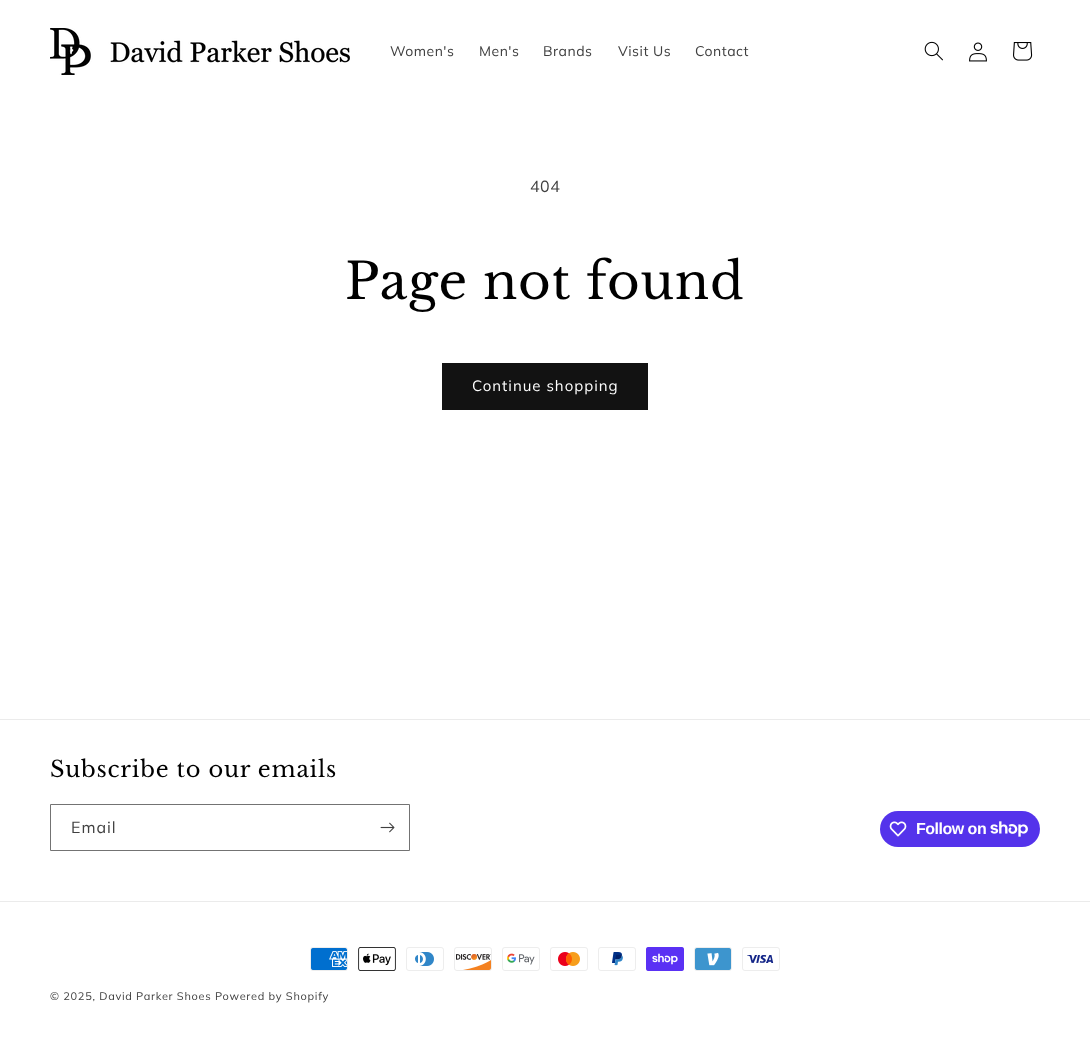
<svg xmlns="http://www.w3.org/2000/svg" width="1090" height="1042" viewBox="0 0 1090 1042">
  <rect width="100%" height="100%" fill="#fff"/>
  <image x="50" y="28" width="300" height="47" href="img/1.png"/>
  <image x="924" y="41" width="19" height="20" href="img/2.png"/>
  <image x="969" y="42" width="18" height="20" href="img/3.png"/>
  <image x="1013" y="42" width="20" height="19" href="img/4.png"/>
  <path d="M442 363h206v47H442z" fill="#121212"/>
  <path d="M0 719h1090v1H0z" fill="#ebebeb"/>
  <path d="M50.5 804.5h359v46H50.5z" fill="none" stroke="#737373"/>
  <image x="380" y="822" width="15" height="11" href="img/5.png"/>
  <rect x="880" y="811" width="160" height="36" rx="18" fill="#5433eb"/>
  <image x="889" y="821" width="18" height="16" href="img/6.png"/>
  <image x="990" y="821" width="38" height="16" href="img/7.png"/>
  <path d="M0 901h1090v1H0z" fill="#ebebeb"/>
  <image x="310" y="947" width="38" height="24" href="img/8.png"/>
  <image x="358" y="947" width="38" height="24" href="img/9.png"/>
  <image x="406" y="947" width="38" height="24" href="img/10.png"/>
  <image x="454" y="947" width="38" height="24" href="img/11.png"/>
  <image x="502" y="947" width="38" height="24" href="img/12.png"/>
  <image x="550" y="947" width="38" height="24" href="img/13.png"/>
  <image x="598" y="947" width="38" height="24" href="img/14.png"/>
  <image x="646" y="947" width="38" height="24" href="img/15.png"/>
  <image x="694" y="947" width="38" height="24" href="img/16.png"/>
  <image x="742" y="947" width="38" height="24" href="img/17.png"/>
  <g font-family="Muli" font-size="14" letter-spacing="0.5" fill="#404040">
    <text x="390" y="56">Women's</text>
    <text x="479" y="56">Men's</text>
    <text x="543" y="56">Brands</text>
    <text x="618" y="56">Visit Us</text>
    <text x="695" y="56">Contact</text>
  </g>
  <text x="530" y="192" font-family="Muli" font-size="16" letter-spacing="0.5" fill="#404040">404</text>
  <text x="345" y="299" font-family="Libre Baskerville" font-size="50" letter-spacing="0.75" fill="#000">Page not found</text>
  <text x="472" y="391" font-family="Muli" font-size="15" letter-spacing="1" fill="#fff">Continue shopping</text>
  <text x="50" y="777" font-family="Libre Baskerville" font-size="22.5" letter-spacing="0.75" fill="#000">Subscribe to our emails</text>
  <text x="71" y="833" font-family="Muli" font-size="16" letter-spacing="1" fill="#404040">Email</text>
  <text x="916" y="834" font-family="Liberation Sans" font-size="16" font-weight="bold" letter-spacing="-0.5" fill="#fff">Follow on</text>
  <text x="50" y="1000" font-family="Muli" font-size="11" letter-spacing="0.7" fill="#404040">© 2025, David Parker Shoes Powered by Shopify</text>
</svg>
